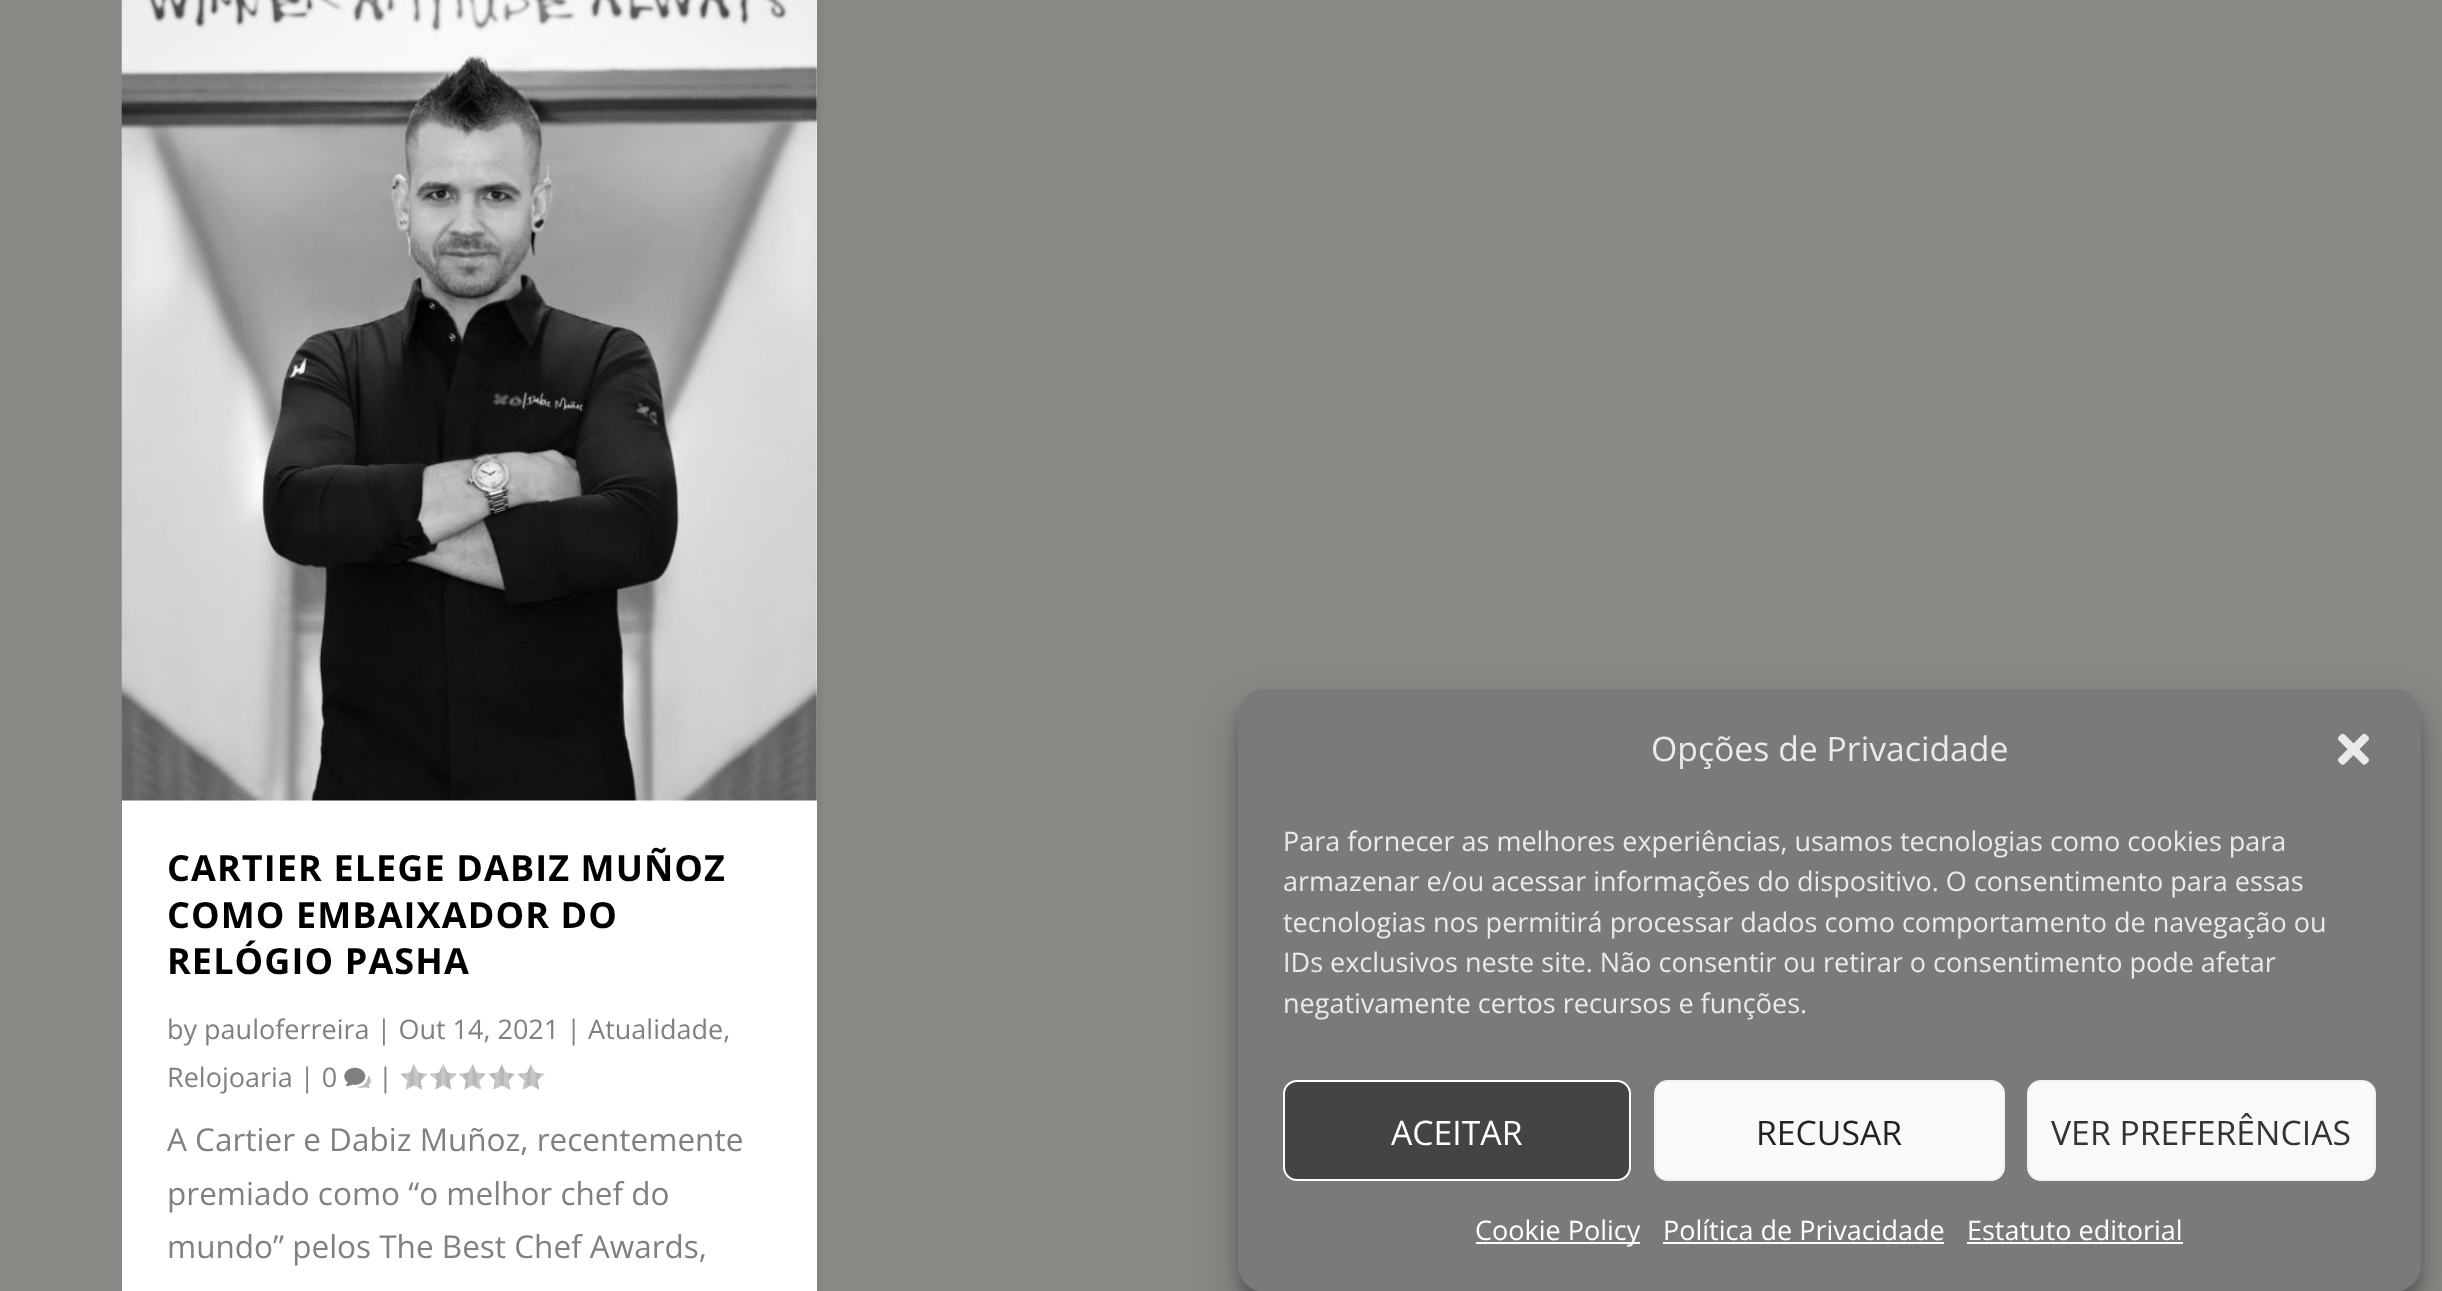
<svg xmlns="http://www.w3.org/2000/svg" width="2442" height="1291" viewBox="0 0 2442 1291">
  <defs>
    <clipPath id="clip1"><rect x="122" y="-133" width="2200" height="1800" rx="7"/></clipPath>
  </defs>
  <rect width="100%" height="100%" fill="#898885"/>
  <g clip-path="url(#clip1)">
    <rect x="122" y="-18" width="695" height="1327" rx="7" fill="#0000001a" filter="blur(3.5px)"/>
  </g>
  <path d="M122 0h695v1291H122z" fill="#fff"/>
  <image x="121" y="0" width="696" height="801" href="img/1.png"/>
  <image x="344" y="1067" width="28" height="21" href="img/2.png"/>
  <image x="400" y="1064" width="28" height="26" href="img/3.png"/>
  <image x="430" y="1064" width="27" height="26" href="img/4.png"/>
  <image x="459" y="1064" width="27" height="26" href="img/5.png"/>
  <image x="488" y="1064" width="27" height="26" href="img/6.png"/>
  <image x="517" y="1064" width="28" height="26" href="img/3.png"/>
  <rect x="1238" y="702" width="1183" height="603" rx="27" fill="#0000003b" filter="blur(7px)"/>
  <rect x="1238" y="711" width="1183" height="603" rx="27" fill="#00000030" filter="blur(22.5px)"/>
  <rect x="1238" y="689" width="1183" height="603" rx="27" fill="#7a7a7a"/>
  <image x="2338" y="733" width="31" height="32" href="img/7.png"/>
  <rect x="1284" y="1081" width="346" height="99" rx="13" fill="#444" stroke="#fff" stroke-width="2"/>
  <rect x="1655" y="1081" width="349" height="99" rx="13" fill="#f9f9f9" stroke="#f2f2f2" stroke-width="2"/>
  <rect x="2028" y="1081" width="347" height="99" rx="13" fill="#f9f9f9" stroke="#f2f2f2" stroke-width="2"/>
  <path d="M1476 1242h164v2H1476z" fill="#fff"/>
  <path d="M1663 1242h281v2H1663z" fill="#fff"/>
  <path d="M1967 1242h216v2H1967z" fill="#fff"/>
  <g font-family="Open Sans" font-size="36" font-weight="bold" letter-spacing="1.1" fill="#000">
    <text x="167" y="881">CARTIER ELEGE DABIZ MUÑOZ</text>
    <text x="167" y="928">COMO EMBAIXADOR DO</text>
    <text x="167" y="974">RELÓGIO PASHA</text>
  </g>
  <g font-family="Open Sans" font-size="27" fill="#808080">
    <text x="167" y="1039">by pauloferreira | Out 14, 2021 | Atualidade,</text>
    <text x="167" y="1087">Relojoaria | 0</text>
    <text x="378" y="1087">|</text>
  </g>
  <g font-family="Open Sans" font-size="31.5" fill="#808080">
    <text x="167" y="1151">A Cartier e Dabiz Muñoz, recentemente</text>
    <text x="167" y="1205">premiado como “o melhor chef do</text>
    <text x="167" y="1258">mundo” pelos The Best Chef Awards,</text>
  </g>
  <text x="1651" y="761" font-family="Open Sans" font-size="33.75" fill="#eaeaea">Opções de Privacidade</text>
  <g font-family="Open Sans" font-size="27" fill="#eaeaea">
    <text x="1283" y="851">Para fornecer as melhores experiências, usamos tecnologias como cookies para</text>
    <text x="1283" y="891">armazenar e/ou acessar informações do dispositivo. O consentimento para essas</text>
    <text x="1283" y="932">tecnologias nos permitirá processar dados como comportamento de navegação ou</text>
    <text x="1283" y="972">IDs exclusivos neste site. Não consentir ou retirar o consentimento pode afetar</text>
    <text x="1283" y="1013">negativamente certos recursos e funções.</text>
  </g>
  <text x="1391" y="1145" font-family="Open Sans" font-size="33.75" fill="#fff">ACEITAR</text>
  <text x="1756" y="1145" font-family="Open Sans" font-size="33.75" fill="#222">RECUSAR</text>
  <text x="2051" y="1145" font-family="Open Sans" font-size="33.75" fill="#333">VER PREFERÊNCIAS</text>
  <g font-family="Open Sans" font-size="27" fill="#fff">
    <text x="1475" y="1240">Cookie Policy</text>
    <text x="1663" y="1240">Política de Privacidade</text>
    <text x="1967" y="1240">Estatuto editorial</text>
  </g>
</svg>
